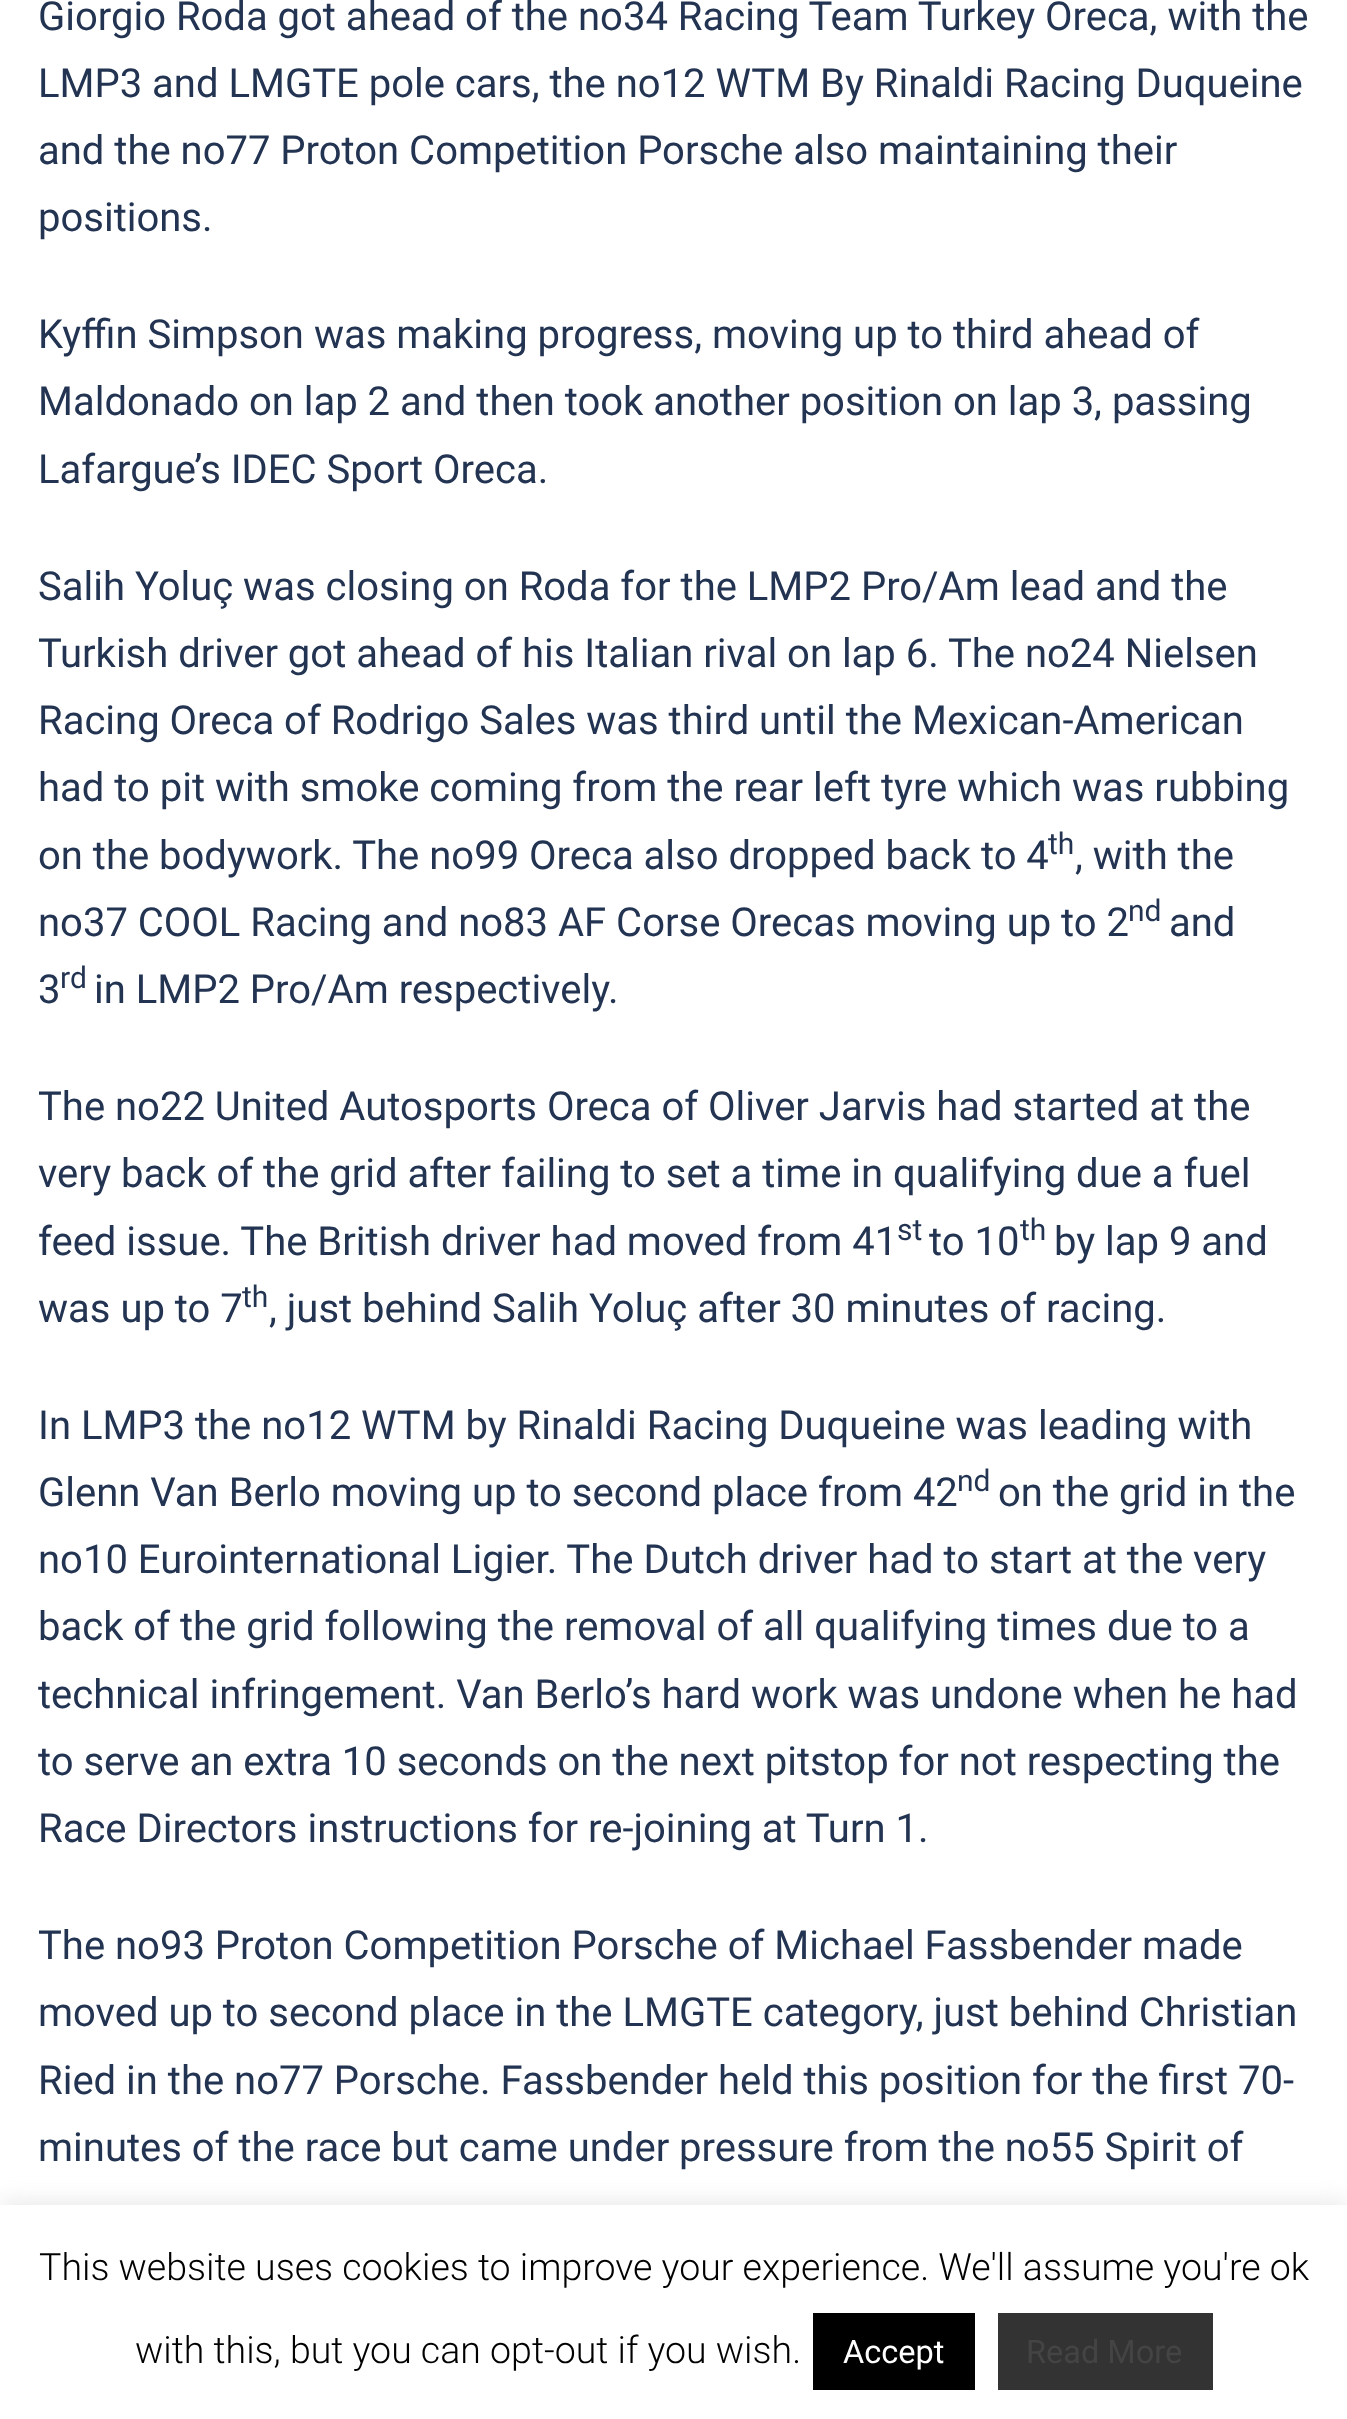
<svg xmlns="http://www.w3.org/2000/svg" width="1347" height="2419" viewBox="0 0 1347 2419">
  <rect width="100%" height="100%" fill="#fff"/>
  <path d="M0 2203h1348v215H0z" fill="#acabab4d" filter="blur(12.5px)"/>
  <path d="M0 2205h1347v214H0z" fill="#fff"/>
  <path d="M813 2313h162v77H813z" fill="#000"/>
  <path d="M998 2313h215v77H998z" fill="#333"/>
  <g font-family="Roboto" font-size="40" fill="#233452">
    <text x="38" y="30">Giorgio Roda got ahead of the no34 Racing Team Turkey Oreca, with the</text>
    <text x="38" y="97">LMP3 and LMGTE pole cars, the no12 WTM By Rinaldi Racing Duqueine</text>
    <text x="38" y="164">and the no77 Proton Competition Porsche also maintaining their</text>
    <text x="38" y="231">positions.</text>
    <text x="38" y="348">Kyffin Simpson was making progress, moving up to third ahead of</text>
    <text x="38" y="415">Maldonado on lap 2 and then took another position on lap 3, passing</text>
    <text x="38" y="483">Lafargue’s IDEC Sport Oreca.</text>
    <text x="38" y="600">Salih Yoluç was closing on Roda for the LMP2 Pro/Am lead and the</text>
    <text x="38" y="667">Turkish driver got ahead of his Italian rival on lap 6. The no24 Nielsen</text>
    <text x="38" y="734">Racing Oreca of Rodrigo Sales was third until the Mexican-American</text>
    <text x="38" y="801">had to pit with smoke coming from the rear left tyre which was rubbing</text>
    <text x="38" y="869">on the bodywork. The no99 Oreca also dropped back to 4</text>
  </g>
  <text x="1048" y="854" font-family="Roboto" font-size="30" fill="#233452">th</text>
  <g font-family="Roboto" font-size="40" fill="#233452">
    <text x="1075" y="869">, with the</text>
    <text x="38" y="936">no37 COOL Racing and no83 AF Corse Orecas moving up to 2</text>
  </g>
  <text x="1128" y="921" font-family="Roboto" font-size="30" fill="#233452">nd</text>
  <g font-family="Roboto" font-size="40" fill="#233452">
    <text x="1169" y="936">and</text>
    <text x="38" y="1003">3</text>
  </g>
  <text x="60" y="988" font-family="Roboto" font-size="30" fill="#233452">rd</text>
  <g font-family="Roboto" font-size="40" fill="#233452">
    <text x="94" y="1003">in LMP2 Pro/Am respectively.</text>
    <text x="38" y="1120">The no22 United Autosports Oreca of Oliver Jarvis had started at the</text>
    <text x="38" y="1187">very back of the grid after failing to set a time in qualifying due a fuel</text>
    <text x="38" y="1255">feed issue. The British driver had moved from 41</text>
  </g>
  <text x="897" y="1240" font-family="Roboto" font-size="30" fill="#233452">st</text>
  <text x="929" y="1255" font-family="Roboto" font-size="40" fill="#233452">to 10</text>
  <text x="1020" y="1240" font-family="Roboto" font-size="30" fill="#233452">th</text>
  <g font-family="Roboto" font-size="40" fill="#233452">
    <text x="1054" y="1255">by lap 9 and</text>
    <text x="38" y="1322">was up to 7</text>
  </g>
  <text x="242" y="1307" font-family="Roboto" font-size="30" fill="#233452">th</text>
  <g font-family="Roboto" font-size="40" fill="#233452">
    <text x="269" y="1322">, just behind Salih Yoluç after 30 minutes of racing.</text>
    <text x="38" y="1439">In LMP3 the no12 WTM by Rinaldi Racing Duqueine was leading with</text>
    <text x="38" y="1506">Glenn Van Berlo moving up to second place from 42</text>
  </g>
  <text x="957" y="1491" font-family="Roboto" font-size="30" fill="#233452">nd</text>
  <g font-family="Roboto" font-size="40" fill="#233452">
    <text x="998" y="1506">on the grid in the</text>
    <text x="38" y="1573">no10 Eurointernational Ligier. The Dutch driver had to start at the very</text>
    <text x="38" y="1640">back of the grid following the removal of all qualifying times due to a</text>
    <text x="38" y="1708">technical infringement. Van Berlo’s hard work was undone when he had</text>
    <text x="38" y="1775">to serve an extra 10 seconds on the next pitstop for not respecting the</text>
    <text x="38" y="1842">Race Directors instructions for re-joining at Turn 1.</text>
    <text x="38" y="1959">The no93 Proton Competition Porsche of Michael Fassbender made</text>
    <text x="38" y="2026">moved up to second place in the LMGTE category, just behind Christian</text>
    <text x="38" y="2094">Ried in the no77 Porsche. Fassbender held this position for the first 70-</text>
    <text x="38" y="2161">minutes of the race but came under pressure from the no55 Spirit of</text>
  </g>
  <g font-family="Roboto" font-size="37.5" font-weight="300" fill="#000">
    <text x="39" y="2280">This website uses cookies to improve your experience. We'll assume you're ok</text>
    <text x="135" y="2363">with this, but you can opt-out if you wish.</text>
  </g>
  <text x="843" y="2363" font-family="Roboto" font-size="32.5" fill="#fff">Accept</text>
  <text x="1026" y="2363" font-family="Roboto" font-size="32.5" fill="#444">Read More</text>
</svg>
